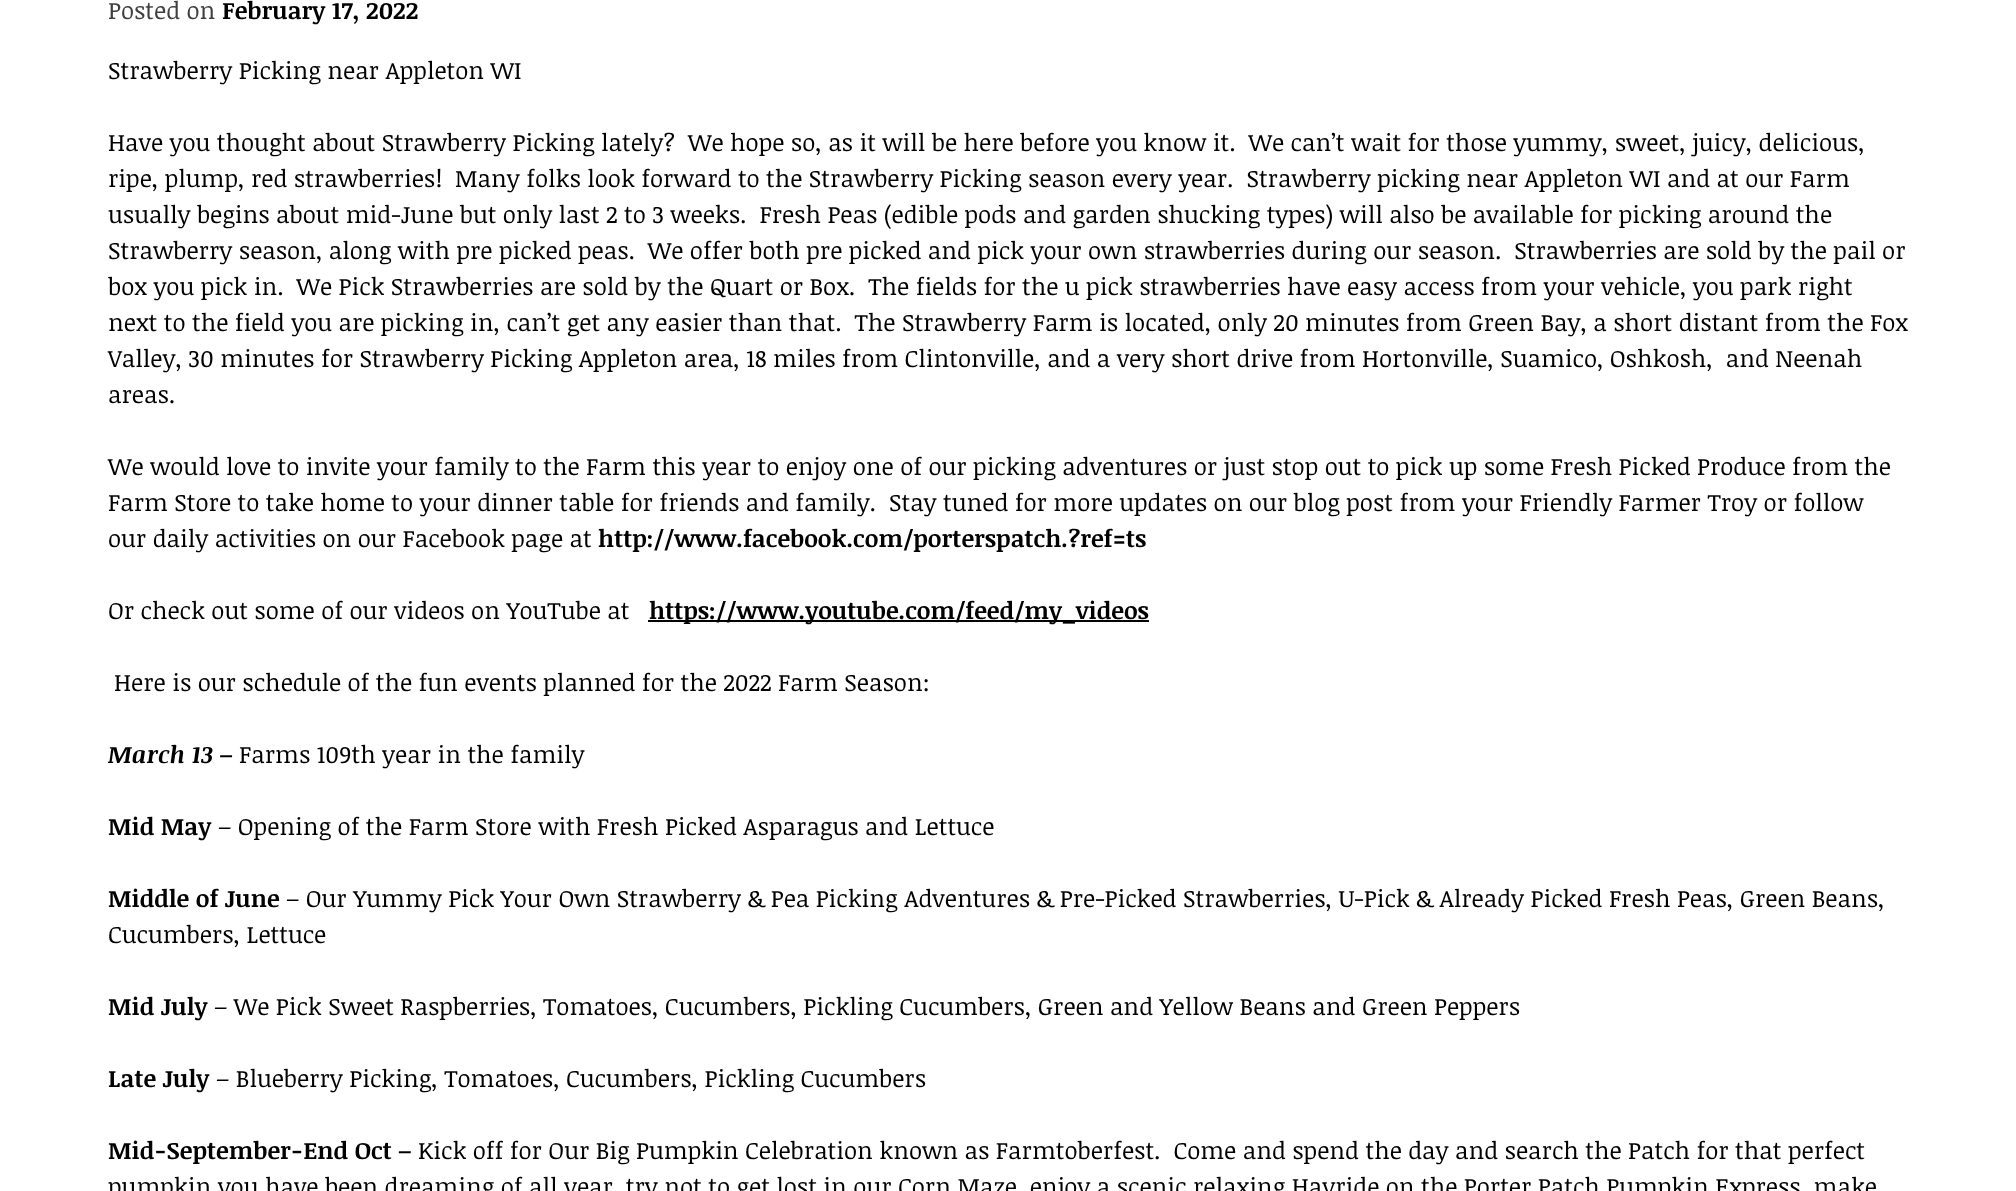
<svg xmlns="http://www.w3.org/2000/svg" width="2016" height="1191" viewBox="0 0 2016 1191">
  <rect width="100%" height="100%" fill="#fff"/>
  <path d="M648 620h501v2H648z" fill="#000"/>
  <text x="108" y="19" font-family="Noticia Text" font-size="24" fill="#404040">Posted on</text>
  <text x="222" y="19" font-family="Noticia Text" font-size="24" font-weight="bold" fill="#000">February 17, 2022</text>
  <g font-family="Noticia Text" font-size="24" fill="#000">
    <text x="108" y="79">Strawberry Picking near Appleton WI</text>
    <text x="108" y="151" xml:space="preserve">Have you thought about Strawberry Picking lately?  We hope so, as it will be here before you know it.  We can’t wait for those yummy, sweet, juicy, delicious,</text>
    <text x="108" y="187" xml:space="preserve">ripe, plump, red strawberries!  Many folks look forward to the Strawberry Picking season every year.  Strawberry picking near Appleton WI and at our Farm</text>
    <text x="108" y="223" xml:space="preserve">usually begins about mid-June but only last 2 to 3 weeks.  Fresh Peas (edible pods and garden shucking types) will also be available for picking around the</text>
    <text x="108" y="259" xml:space="preserve">Strawberry season, along with pre picked peas.  We offer both pre picked and pick your own strawberries during our season.  Strawberries are sold by the pail or</text>
    <text x="108" y="295" xml:space="preserve">box you pick in.  We Pick Strawberries are sold by the Quart or Box.  The fields for the u pick strawberries have easy access from your vehicle, you park right</text>
    <text x="108" y="331" xml:space="preserve">next to the field you are picking in, can’t get any easier than that.  The Strawberry Farm is located, only 20 minutes from Green Bay, a short distant from the Fox</text>
    <text x="108" y="367" xml:space="preserve">Valley, 30 minutes for Strawberry Picking Appleton area, 18 miles from Clintonville, and a very short drive from Hortonville, Suamico, Oshkosh,  and Neenah</text>
    <text x="108" y="403">areas.</text>
    <text x="108" y="475">We would love to invite your family to the Farm this year to enjoy one of our picking adventures or just stop out to pick up some Fresh Picked Produce from the</text>
    <text x="108" y="511" xml:space="preserve">Farm Store to take home to your dinner table for friends and family.  Stay tuned for more updates on our blog post from your Friendly Farmer Troy or follow</text>
    <text x="108" y="547">our daily activities on our Facebook page at</text>
  </g>
  <text x="598" y="547" font-family="Noticia Text" font-size="24" font-weight="bold" fill="#000">http://www.facebook.com/porterspatch.?ref=ts</text>
  <text x="108" y="619" font-family="Noticia Text" font-size="24" fill="#000">Or check out some of our videos on YouTube at</text>
  <text x="649" y="619" font-family="Noticia Text" font-size="24" font-weight="bold" fill="#000">https://www.youtube.com/feed/my_videos</text>
  <text x="114" y="691" font-family="Noticia Text" font-size="24" fill="#000">Here is our schedule of the fun events planned for the 2022 Farm Season:</text>
  <text x="108" y="763" font-family="Noticia Text" font-size="24" font-weight="bold" font-style="italic" fill="#000">March 13 –</text>
  <text x="239" y="763" font-family="Noticia Text" font-size="24" fill="#000">Farms 109th year in the family</text>
  <text x="108" y="835" font-family="Noticia Text" font-size="24" font-weight="bold" fill="#000">Mid May</text>
  <text x="218" y="835" font-family="Noticia Text" font-size="24" fill="#000">– Opening of the Farm Store with Fresh Picked Asparagus and Lettuce</text>
  <text x="108" y="907" font-family="Noticia Text" font-size="24" font-weight="bold" fill="#000">Middle of June</text>
  <g font-family="Noticia Text" font-size="24" fill="#000">
    <text x="286" y="907">– Our Yummy Pick Your Own Strawberry &amp; Pea Picking Adventures &amp; Pre-Picked Strawberries, U-Pick &amp; Already Picked Fresh Peas, Green Beans,</text>
    <text x="108" y="943">Cucumbers, Lettuce</text>
  </g>
  <text x="108" y="1015" font-family="Noticia Text" font-size="24" font-weight="bold" fill="#000">Mid July</text>
  <text x="214" y="1015" font-family="Noticia Text" font-size="24" fill="#000">– We Pick Sweet Raspberries, Tomatoes, Cucumbers, Pickling Cucumbers, Green and Yellow Beans and Green Peppers</text>
  <text x="108" y="1087" font-family="Noticia Text" font-size="24" font-weight="bold" fill="#000">Late July</text>
  <text x="216" y="1087" font-family="Noticia Text" font-size="24" fill="#000">– Blueberry Picking, Tomatoes, Cucumbers, Pickling Cucumbers</text>
  <text x="108" y="1159" font-family="Noticia Text" font-size="24" font-weight="bold" fill="#000">Mid-September-End Oct –</text>
  <g font-family="Noticia Text" font-size="24" fill="#000">
    <text x="418" y="1159" xml:space="preserve">Kick off for Our Big Pumpkin Celebration known as Farmtoberfest.  Come and spend the day and search the Patch for that perfect</text>
    <text x="108" y="1195">pumpkin you have been dreaming of all year, try not to get lost in our Corn Maze, enjoy a scenic relaxing Hayride on the Porter Patch Pumpkin Express, make</text>
  </g>
</svg>
